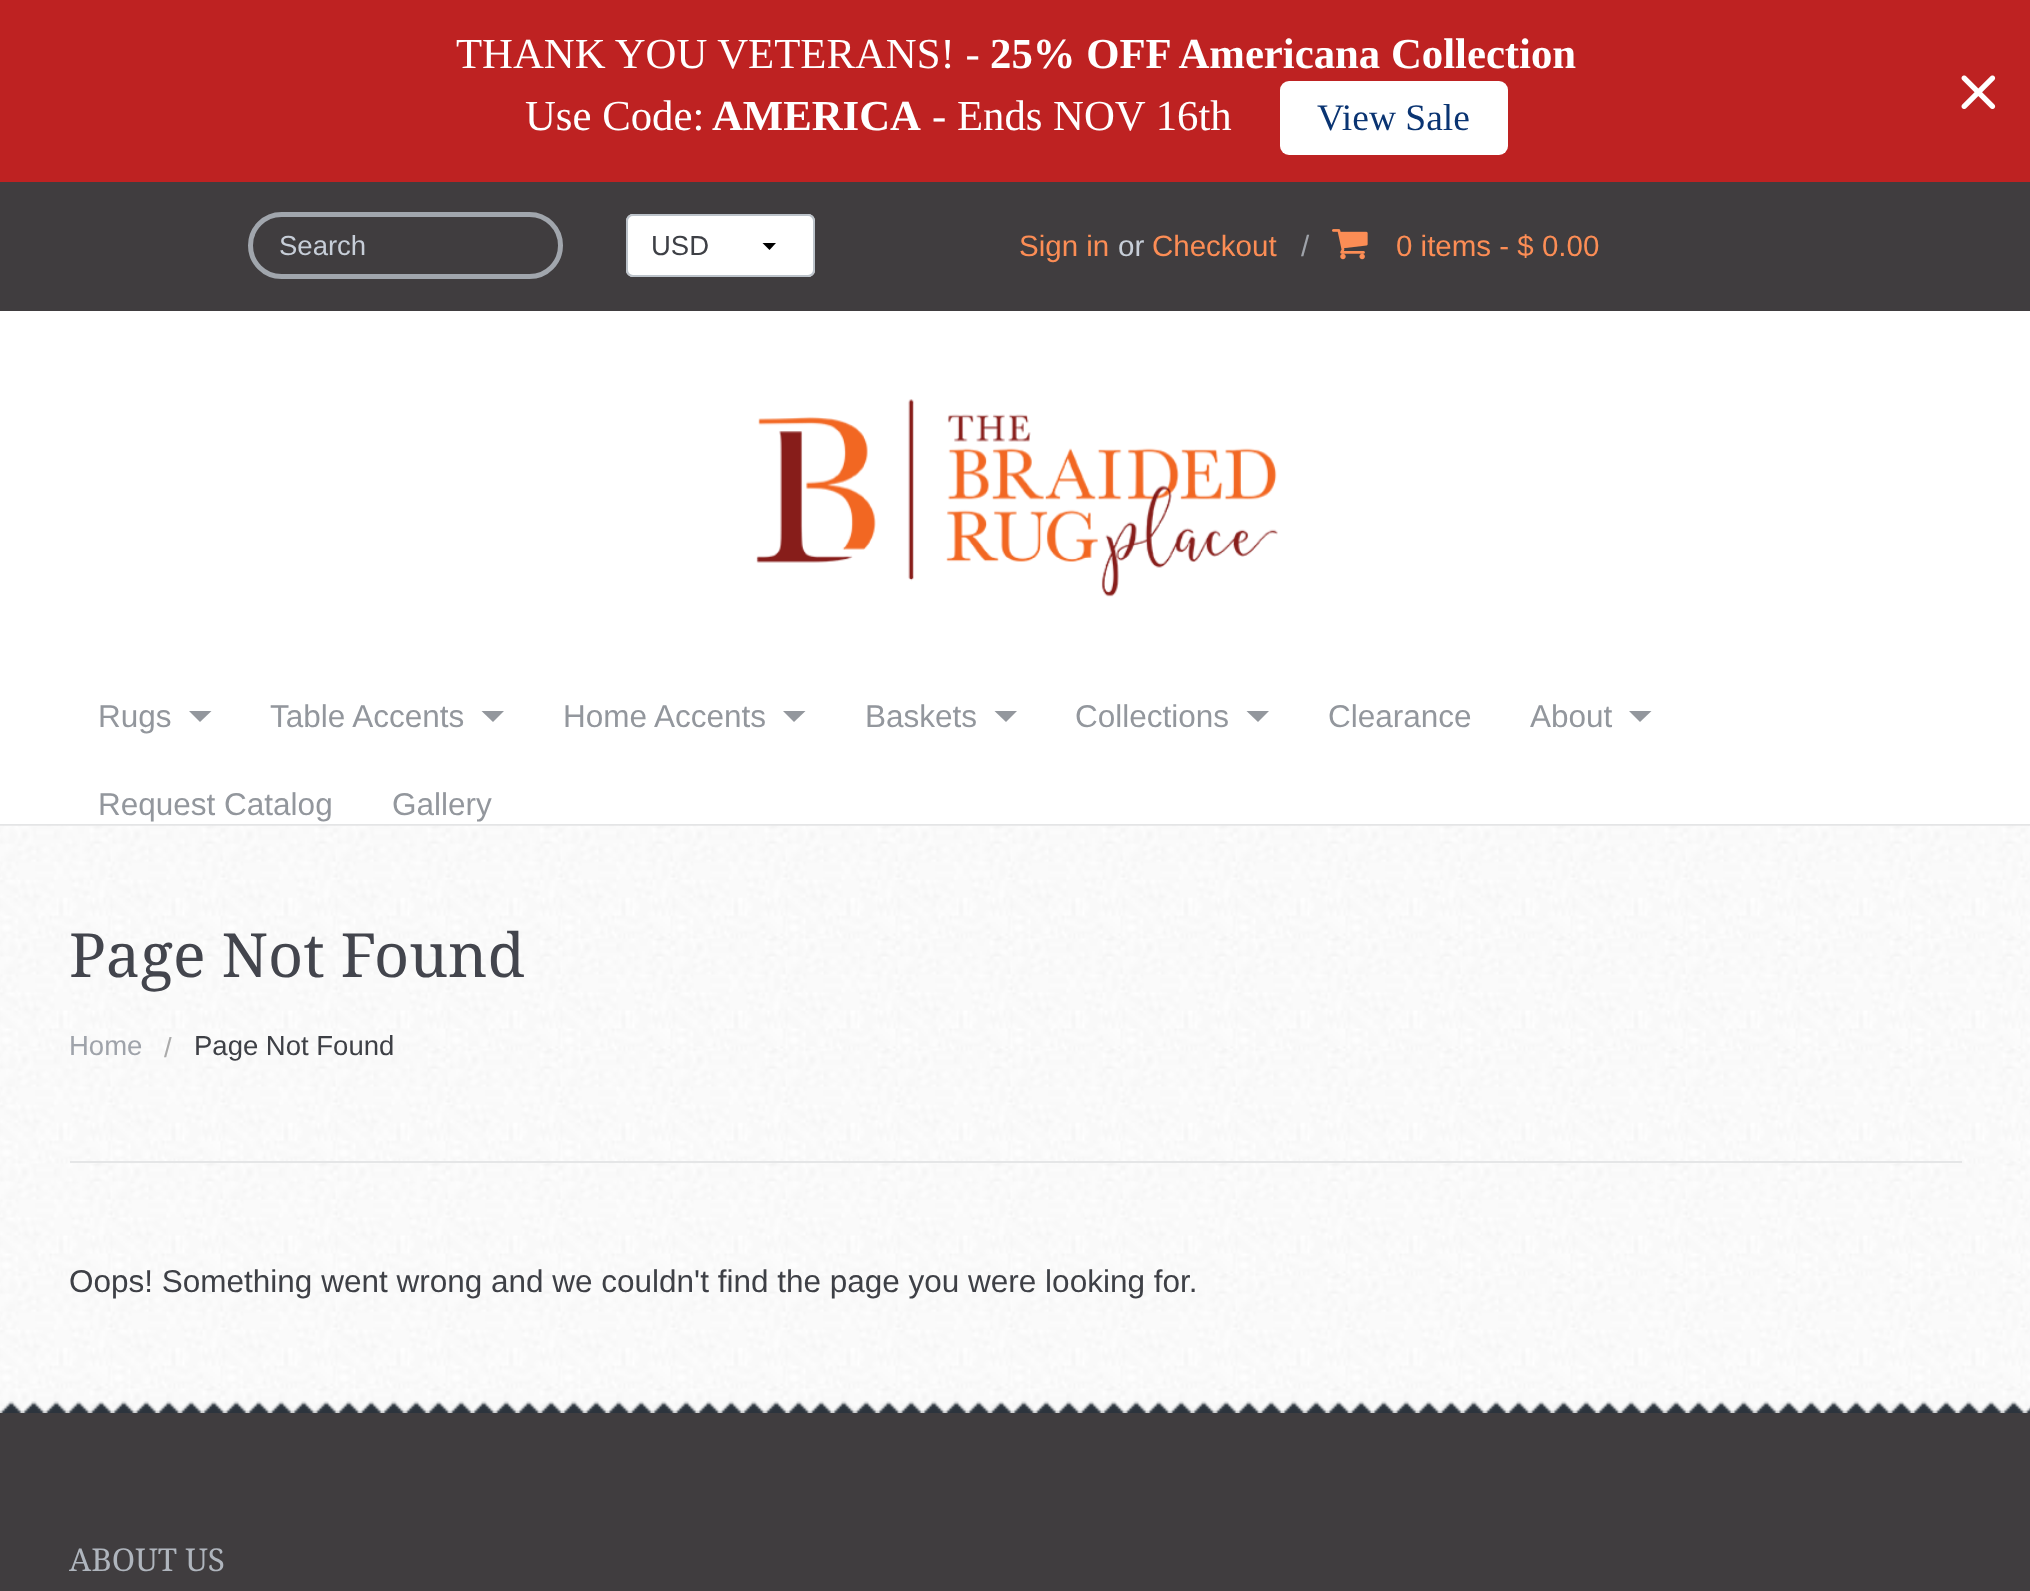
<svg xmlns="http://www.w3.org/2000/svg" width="2030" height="1591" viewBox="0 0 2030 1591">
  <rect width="100%" height="100%" fill="#403d3f"/>
  <path d="M0 0h2030v182H0z" fill="#be2222"/>
  <rect x="1280" y="81" width="228" height="74" rx="9" fill="#fff"/>
  <image x="1961" y="75" width="35" height="34" href="img/1.png"/>
  <rect x="250.5" y="214.5" width="310" height="62" rx="31" fill="none" stroke="#a1a6ad" stroke-width="5"/>
  <rect x="626" y="214" width="189" height="63" rx="7" fill="#fff"/>
  <path d="M776 243L769.5 250L762.5 243Z" fill="#000"/>
  <rect x="627" y="215" width="187" height="61" rx="6" fill="none" stroke="#bcc3ca" stroke-width="2"/>
  <image x="1332" y="229" width="36" height="31" href="img/2.png"/>
  <path d="M0 311h2030v513H0z" fill="#fff"/>
  <path d="M0 824h2030v2H0z" fill="#e4e5e6"/>
  <image x="756" y="399" width="522" height="198" href="img/3.png"/>
  <path d="M189 711H211.5L200 722Z" fill="#93979d"/>
  <path d="M481.5 711H504L493 722Z" fill="#93979d"/>
  <path d="M783 711H805.5L794 722Z" fill="#93979d"/>
  <path d="M994.5 711H1017L1006 722Z" fill="#93979d"/>
  <path d="M1246.5 711H1269L1258 722Z" fill="#93979d"/>
  <path d="M1629 711H1651.5L1640 722Z" fill="#93979d"/>
  <image x="0" y="825" width="2030" height="588" href="img/4.png"/>
  <path d="M70 1161h1892v2H70z" fill="#e5e6e7"/>
  <image x="0" y="1401" width="2030" height="12" href="img/5.png"/>
  <text x="456" y="68" font-family="Liberation Serif" font-size="42.75" fill="#fff">THANK YOU VETERANS! -</text>
  <text x="990" y="68" font-family="Liberation Serif" font-size="42.75" font-weight="bold" fill="#fff">25% OFF Americana Collection</text>
  <text x="525" y="130" font-family="Liberation Serif" font-size="42.75" fill="#fff">Use Code:</text>
  <text x="712" y="130" font-family="Liberation Serif" font-size="42.75" font-weight="bold" fill="#fff">AMERICA</text>
  <text x="932" y="130" font-family="Liberation Serif" font-size="42.75" fill="#fff">- Ends NOV 16th</text>
  <text x="1317" y="130" font-family="Liberation Serif" font-size="37.5" fill="#0a3472">View Sale</text>
  <text x="279" y="255" font-family="Liberation Sans" font-size="27.5" fill="#c7ced8">Search</text>
  <text x="651" y="255" font-family="Liberation Sans" font-size="27.5" fill="#3e4046">USD</text>
  <text x="1019" y="256" font-family="Liberation Sans" font-size="29.5" fill="#fc8d55">Sign in</text>
  <text x="1118" y="256" font-family="Liberation Sans" font-size="29.5" fill="#c7ced8">or</text>
  <text x="1152" y="256" font-family="Liberation Sans" font-size="29.5" fill="#fc8d55">Checkout</text>
  <text x="1301" y="256" font-family="Liberation Sans" font-size="29.5" fill="#9fa3aa">/</text>
  <text x="1396" y="256" font-family="Liberation Sans" font-size="29.5" fill="#fc8d55">0 items - $ 0.00</text>
  <g font-family="Liberation Sans" font-size="31.5" fill="#93979d">
    <text x="98" y="727">Rugs</text>
    <text x="270" y="727">Table Accents</text>
    <text x="563" y="727">Home Accents</text>
    <text x="865" y="727">Baskets</text>
    <text x="1075" y="727">Collections</text>
    <text x="1328" y="727">Clearance</text>
    <text x="1530" y="727">About</text>
    <text x="98" y="815">Request Catalog</text>
    <text x="392" y="815">Gallery</text>
  </g>
  <text x="69" y="977" font-family="Droid Serif" font-size="61" fill="#43454d">Page Not Found</text>
  <text x="69" y="1055" font-family="Liberation Sans" font-size="27.5" fill="#9fa3aa">Home</text>
  <text x="164" y="1057" font-family="Liberation Sans" font-size="27.5" fill="#aaa">/</text>
  <text x="194" y="1055" font-family="Liberation Sans" font-size="27.5" fill="#3e4046">Page Not Found</text>
  <text x="69" y="1292" font-family="Liberation Sans" font-size="31.5" fill="#3e4046">Oops! Something went wrong and we couldn't find the page you were looking for.</text>
  <text x="69" y="1571" font-family="Droid Serif" font-size="31.5" fill="#afb5bd">ABOUT US</text>
</svg>
